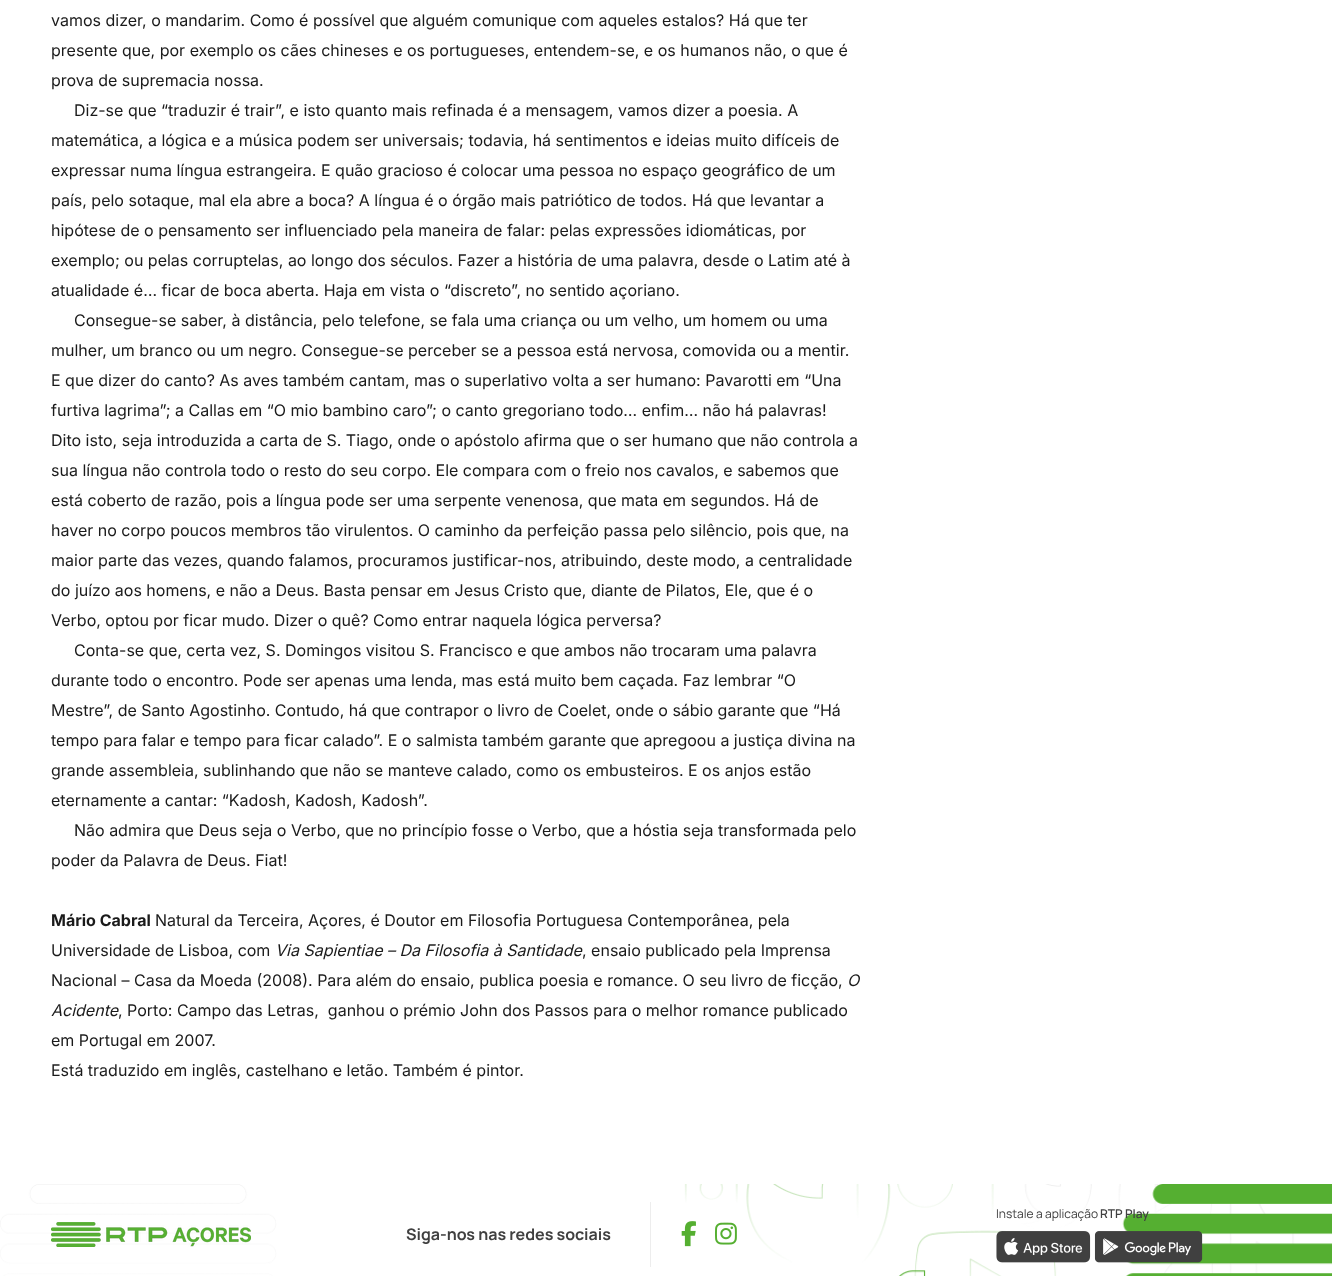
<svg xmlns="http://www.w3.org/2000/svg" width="1332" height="1276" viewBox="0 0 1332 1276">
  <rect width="100%" height="100%" fill="#fff"/>
  <image x="0" y="1184" width="1332" height="92" href="img/1.png"/>
  <image x="996" y="1231" width="95" height="32" href="img/2.png"/>
  <image x="1094" y="1231" width="109" height="32" href="img/3.png"/>
  <image x="51" y="1222" width="200" height="25" href="img/4.png"/>
  <path d="M650 1202h1v65H650z" fill="#ededed"/>
  <image x="681" y="1221" width="15" height="26" href="img/5.png"/>
  <image x="715" y="1222" width="22" height="23" href="img/6.png"/>
  <g font-family="Inter" font-size="16" fill="#1a1a1a">
    <text x="51" y="26">vamos dizer, o mandarim. Como é possível que alguém comunique com aqueles estalos? Há que ter</text>
    <text x="51" y="56">presente que, por exemplo os cães chineses e os portugueses, entendem-se, e os humanos não, o que é</text>
    <text x="51" y="86">prova de supremacia nossa.</text>
    <text x="74" y="116">Diz-se que “traduzir é trair”, e isto quanto mais refinada é a mensagem, vamos dizer a poesia. A</text>
    <text x="51" y="146">matemática, a lógica e a música podem ser universais; todavia, há sentimentos e ideias muito difíceis de</text>
    <text x="51" y="176">expressar numa língua estrangeira. E quão gracioso é colocar uma pessoa no espaço geográfico de um</text>
    <text x="51" y="206">país, pelo sotaque, mal ela abre a boca? A língua é o órgão mais patriótico de todos. Há que levantar a</text>
    <text x="51" y="236">hipótese de o pensamento ser influenciado pela maneira de falar: pelas expressões idiomáticas, por</text>
    <text x="51" y="266">exemplo; ou pelas corruptelas, ao longo dos séculos. Fazer a história de uma palavra, desde o Latim até à</text>
    <text x="51" y="296">atualidade é… ficar de boca aberta. Haja em vista o “discreto”, no sentido açoriano.</text>
    <text x="74" y="326">Consegue-se saber, à distância, pelo telefone, se fala uma criança ou um velho, um homem ou uma</text>
    <text x="51" y="356">mulher, um branco ou um negro. Consegue-se perceber se a pessoa está nervosa, comovida ou a mentir.</text>
    <text x="51" y="386">E que dizer do canto? As aves também cantam, mas o superlativo volta a ser humano: Pavarotti em “Una</text>
    <text x="51" y="416">furtiva lagrima”; a Callas em “O mio bambino caro”; o canto gregoriano todo… enfim… não há palavras!</text>
    <text x="51" y="446">Dito isto, seja introduzida a carta de S. Tiago, onde o apóstolo afirma que o ser humano que não controla a</text>
    <text x="51" y="476">sua língua não controla todo o resto do seu corpo. Ele compara com o freio nos cavalos, e sabemos que</text>
    <text x="51" y="506">está coberto de razão, pois a língua pode ser uma serpente venenosa, que mata em segundos. Há de</text>
    <text x="51" y="536">haver no corpo poucos membros tão virulentos. O caminho da perfeição passa pelo silêncio, pois que, na</text>
    <text x="51" y="566">maior parte das vezes, quando falamos, procuramos justificar-nos, atribuindo, deste modo, a centralidade</text>
    <text x="51" y="596">do juízo aos homens, e não a Deus. Basta pensar em Jesus Cristo que, diante de Pilatos, Ele, que é o</text>
    <text x="51" y="626">Verbo, optou por ficar mudo. Dizer o quê? Como entrar naquela lógica perversa?</text>
    <text x="74" y="656">Conta-se que, certa vez, S. Domingos visitou S. Francisco e que ambos não trocaram uma palavra</text>
    <text x="51" y="686">durante todo o encontro. Pode ser apenas uma lenda, mas está muito bem caçada. Faz lembrar “O</text>
    <text x="51" y="716">Mestre”, de Santo Agostinho. Contudo, há que contrapor o livro de Coelet, onde o sábio garante que “Há</text>
    <text x="51" y="746">tempo para falar e tempo para ficar calado”. E o salmista também garante que apregoou a justiça divina na</text>
    <text x="51" y="776">grande assembleia, sublinhando que não se manteve calado, como os embusteiros. E os anjos estão</text>
    <text x="51" y="806">eternamente a cantar: “Kadosh, Kadosh, Kadosh”.</text>
    <text x="74" y="836">Não admira que Deus seja o Verbo, que no princípio fosse o Verbo, que a hóstia seja transformada pelo</text>
    <text x="51" y="866">poder da Palavra de Deus. Fiat!</text>
  </g>
  <text x="51" y="926" font-family="Inter" font-size="16" font-weight="bold" fill="#1a1a1a">Mário Cabral</text>
  <g font-family="Inter" font-size="16" fill="#1a1a1a">
    <text x="155" y="926">Natural da Terceira, Açores, é Doutor em Filosofia Portuguesa Contemporânea, pela</text>
    <text x="51" y="956">Universidade de Lisboa, com</text>
  </g>
  <text x="275" y="956" font-family="Inter" font-size="16" font-style="italic" fill="#1a1a1a">Via Sapientiae – Da Filosofia à Santidade</text>
  <g font-family="Inter" font-size="16" fill="#1a1a1a">
    <text x="582" y="956">, ensaio publicado pela Imprensa</text>
    <text x="51" y="986">Nacional – Casa da Moeda (2008). Para além do ensaio, publica poesia e romance. O seu livro de ficção,</text>
  </g>
  <g font-family="Inter" font-size="16" font-style="italic" fill="#1a1a1a">
    <text x="847" y="986">O</text>
    <text x="51" y="1016">Acidente</text>
  </g>
  <g font-family="Inter" font-size="16" fill="#1a1a1a">
    <text x="118" y="1016" xml:space="preserve">, Porto: Campo das Letras,  ganhou o prémio John dos Passos para o melhor romance publicado</text>
    <text x="51" y="1046">em Portugal em 2007.</text>
    <text x="51" y="1076">Está traduzido em inglês, castelhano e letão. Também é pintor.</text>
  </g>
  <text x="996" y="1218" font-family="Manrope" font-size="12" fill="#404040">Instale a aplicação</text>
  <text x="1100" y="1218" font-family="Manrope" font-size="12" font-weight="600" fill="#404040">RTP Play</text>
  <text x="406" y="1240" font-family="Manrope" font-size="16" font-weight="bold" fill="#404040">Siga-nos nas redes sociais</text>
</svg>
